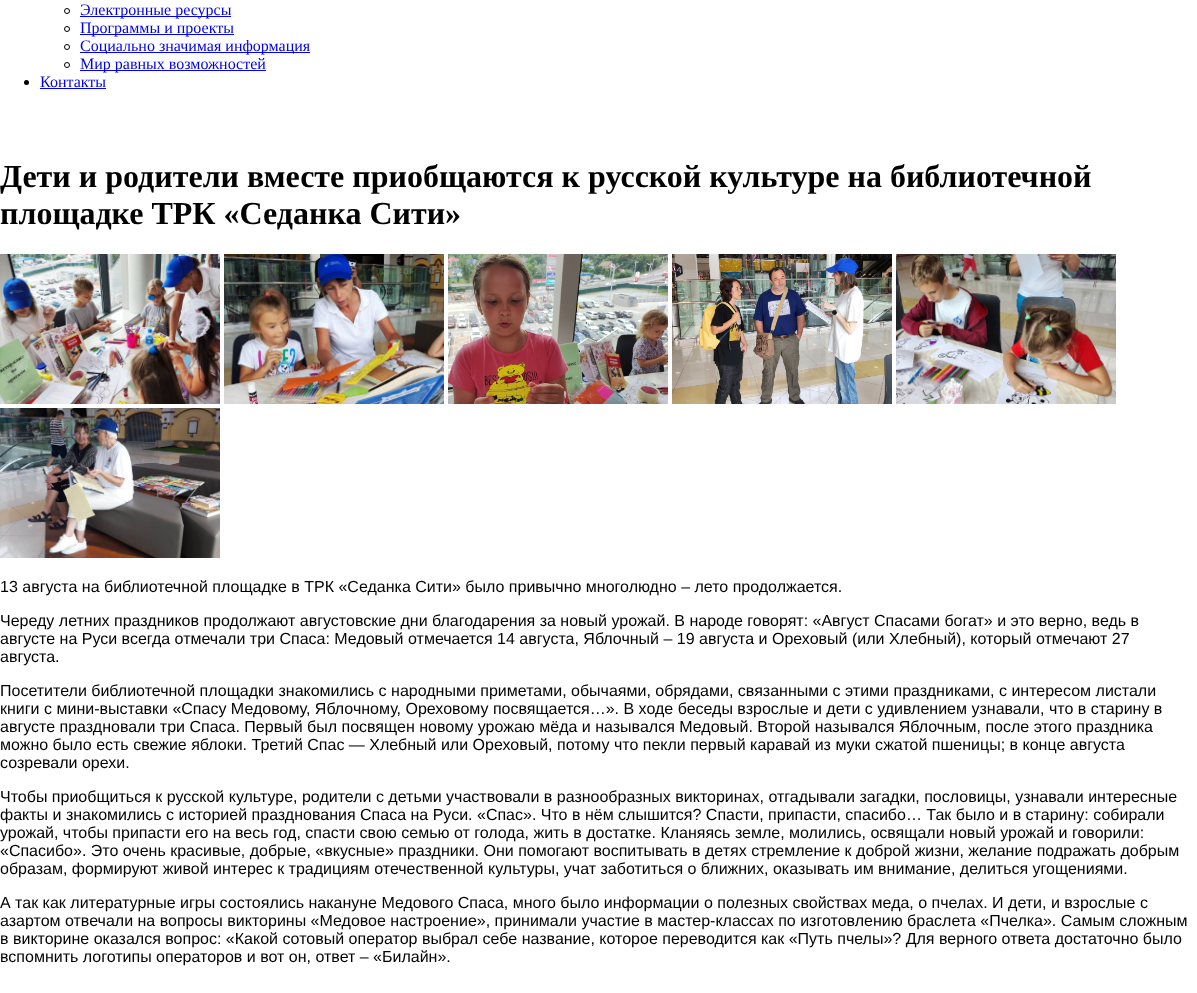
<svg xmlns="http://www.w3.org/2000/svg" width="1197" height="993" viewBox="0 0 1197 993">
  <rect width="100%" height="100%" fill="#fff"/>
  <circle cx="67" cy="11" r="2.5" fill="none" stroke="#000"/>
  <path d="M80 16h151v1H80z" fill="#00e"/>
  <circle cx="67" cy="29" r="2.5" fill="none" stroke="#000"/>
  <path d="M80 34h154v1H80z" fill="#00e"/>
  <circle cx="67" cy="47" r="2.5" fill="none" stroke="#000"/>
  <path d="M80 52h230v1H80z" fill="#00e"/>
  <circle cx="67" cy="65" r="2.5" fill="none" stroke="#000"/>
  <path d="M80 70h186v1H80z" fill="#00e"/>
  <circle cx="26.5" cy="82.5" r="2.5" fill="#000"/>
  <path d="M40 88h66v1H40z" fill="#00e"/>
  <image x="0" y="254" width="220" height="150" href="img/1.png"/>
  <image x="224" y="254" width="220" height="150" href="img/2.png"/>
  <image x="448" y="254" width="220" height="150" href="img/3.png"/>
  <image x="672" y="254" width="220" height="150" href="img/4.png"/>
  <image x="896" y="254" width="220" height="150" href="img/5.png"/>
  <image x="0" y="408" width="220" height="150" href="img/6.png"/>
  <g font-family="Liberation Serif" font-size="16" fill="#00e">
    <text x="80" y="15">Электронные ресурсы</text>
    <text x="80" y="33">Программы и проекты</text>
    <text x="80" y="51">Социально значимая информация</text>
    <text x="80" y="69">Мир равных возможностей</text>
    <text x="40" y="87">Контакты</text>
  </g>
  <g font-family="Liberation Serif" font-size="32" font-weight="bold" fill="#000">
    <text x="0" y="187">Дети и родители вместе приобщаются к русской культуре на библиотечной</text>
    <text x="0" y="224">площадке ТРК «Седанка Сити»</text>
  </g>
  <g font-family="Liberation Sans" font-size="16" fill="#000">
    <text x="0" y="592">13 августа на библиотечной площадке в ТРК «Седанка Сити» было привычно многолюдно – лето продолжается.</text>
    <text x="0" y="626">Череду летних праздников продолжают августовские дни благодарения за новый урожай. В народе говорят: «Август Спасами богат» и это верно, ведь в</text>
    <text x="0" y="644">августе на Руси всегда отмечали три Спаса: Медовый отмечается 14 августа, Яблочный – 19 августа и Ореховый (или Хлебный), который отмечают 27</text>
    <text x="0" y="662">августа.</text>
    <text x="0" y="696">Посетители библиотечной площадки знакомились с народными приметами, обычаями, обрядами, связанными с этими праздниками, с интересом листали</text>
    <text x="0" y="714">книги с мини-выставки «Спасу Медовому, Яблочному, Ореховому посвящается…». В ходе беседы взрослые и дети с удивлением узнавали, что в старину в</text>
    <text x="0" y="732">августе праздновали три Спаса. Первый был посвящен новому урожаю мёда и назывался Медовый. Второй назывался Яблочным, после этого праздника</text>
    <text x="0" y="750">можно было есть свежие яблоки. Третий Спас — Хлебный или Ореховый, потому что пекли первый каравай из муки сжатой пшеницы; в конце августа</text>
    <text x="0" y="768">созревали орехи.</text>
    <text x="0" y="802">Чтобы приобщиться к русской культуре, родители с детьми участвовали в разнообразных викторинах, отгадывали загадки, пословицы, узнавали интересные</text>
    <text x="0" y="820">факты и знакомились с историей празднования Спаса на Руси. «Спас». Что в нём слышится? Спасти, припасти, спасибо… Так было и в старину: собирали</text>
    <text x="0" y="838">урожай, чтобы припасти его на весь год, спасти свою семью от голода, жить в достатке. Кланяясь земле, молились, освящали новый урожай и говорили:</text>
    <text x="0" y="856">«Спасибо». Это очень красивые, добрые, «вкусные» праздники. Они помогают воспитывать в детях стремление к доброй жизни, желание подражать добрым</text>
    <text x="0" y="874">образам, формируют живой интерес к традициям отечественной культуры, учат заботиться о ближних, оказывать им внимание, делиться угощениями.</text>
    <text x="0" y="908">А так как литературные игры состоялись накануне Медового Спаса, много было информации о полезных свойствах меда, о пчелах. И дети, и взрослые с</text>
    <text x="0" y="926">азартом отвечали на вопросы викторины «Медовое настроение», принимали участие в мастер-классах по изготовлению браслета «Пчелка». Самым сложным</text>
    <text x="0" y="944">в викторине оказался вопрос: «Какой сотовый оператор выбрал себе название, которое переводится как «Путь пчелы»? Для верного ответа достаточно было</text>
    <text x="0" y="962">вспомнить логотипы операторов и вот он, ответ – «Билайн».</text>
  </g>
</svg>
